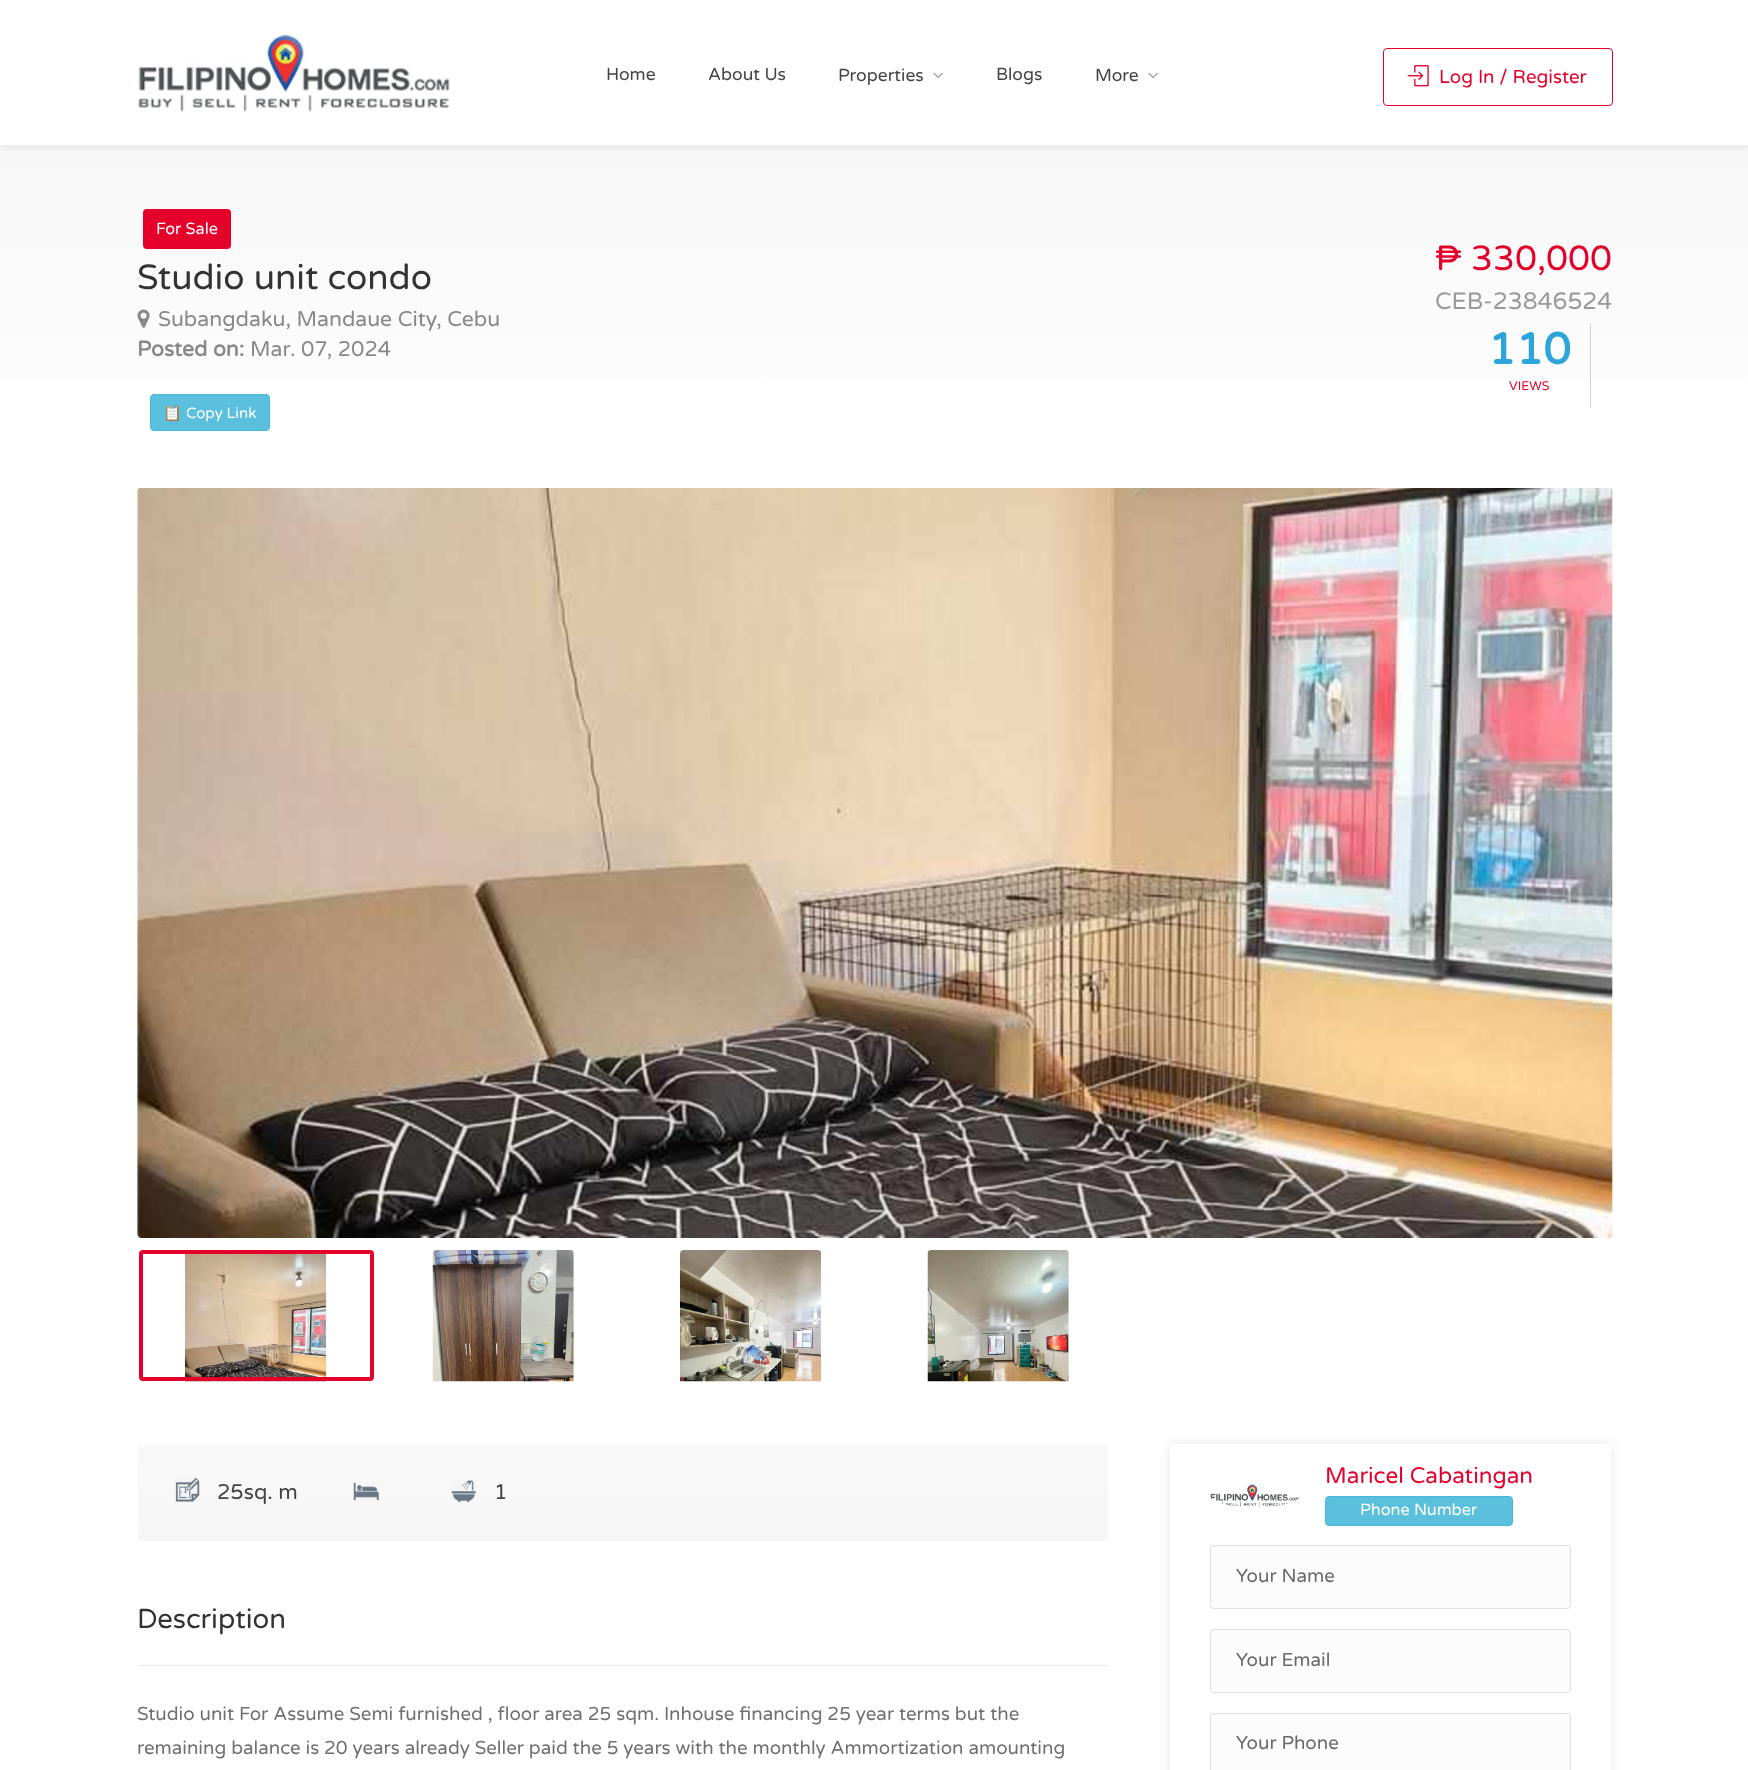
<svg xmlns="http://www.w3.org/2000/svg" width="1748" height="1770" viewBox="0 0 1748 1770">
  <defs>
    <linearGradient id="g1" gradientUnits="userSpaceOnUse" x1="874" y1="145" x2="874" y2="488"><stop offset="0" stop-color="#f7f7f7"/><stop offset="1" stop-color="#fff"/></linearGradient>
    <clipPath id="clip1"><path d="M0 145h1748v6H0z"/></clipPath>
    <linearGradient id="g2" gradientUnits="userSpaceOnUse" x1="623" y1="1444" x2="623" y2="1541"><stop offset="0" stop-color="#f9f9f9"/><stop offset="1" stop-color="#f6f6f6"/></linearGradient>
    <clipPath id="clip2"><path d="M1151 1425H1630V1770H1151ZM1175 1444H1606C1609 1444 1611 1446 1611 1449V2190C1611 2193 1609 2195 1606 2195H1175C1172 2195 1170 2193 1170 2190V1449C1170 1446 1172 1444 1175 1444Z" clip-rule="evenodd"/></clipPath>
  </defs>
  <rect width="100%" height="100%" fill="#fff"/>
  <path d="M0 145h1748v236H0z" fill="url(#g1)"/>
  <g clip-path="url(#clip1)">
    <path d="M0 0h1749v145H0z" fill="#0000001f" filter="blur(6px)"/>
  </g>
  <image x="138" y="34" width="312" height="78" href="img/1.png"/>
  <image x="933" y="72" width="10" height="7" href="img/2.png"/>
  <image x="1148" y="72" width="10" height="7" href="img/2.png"/>
  <rect x="1383.5" y="48.5" width="229" height="57" rx="3.5" fill="none" stroke="#e4002b"/>
  <image x="1407" y="65" width="22" height="22" href="img/3.png"/>
  <rect x="143" y="209" width="88" height="40" rx="4" fill="#e4002b"/>
  <image x="137" y="309" width="13" height="19" href="img/4.png"/>
  <rect x="150.5" y="394.5" width="119" height="36" rx="3.5" fill="#5bc0de" stroke="#46b8da"/>
  <path d="M1590 323h1v85H1590z" fill="#d3d3d3"/>
  <image x="137" y="488" width="1476" height="750" href="img/5.png"/>
  <image x="185" y="1254" width="142" height="128" href="img/6.png"/>
  <rect x="141" y="1252" width="231" height="127" rx="2" fill="none" stroke="#e4002b" stroke-width="4"/>
  <image x="432" y="1250" width="142" height="132" href="img/7.png"/>
  <image x="680" y="1250" width="142" height="132" href="img/8.png"/>
  <image x="927" y="1250" width="142" height="132" href="img/9.png"/>
  <rect x="138" y="1444" width="970" height="97" rx="4" fill="url(#g2)"/>
  <image x="175" y="1477" width="25" height="25" href="img/10.png"/>
  <image x="353" y="1482" width="26" height="19" href="img/11.png"/>
  <image x="451" y="1480" width="26" height="23" href="img/12.png"/>
  <path d="M138 1665h970v1H138z" fill="#eaeaea"/>
  <g clip-path="url(#clip2)">
    <rect x="1170" y="1444" width="441" height="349" rx="5" fill="#0000001a" filter="blur(6px)"/>
  </g>
  <image x="1210" y="1484" width="89" height="23" href="img/13.png"/>
  <rect x="1325.5" y="1496.5" width="187" height="29" rx="3.5" fill="#5bc0de" stroke="#46b8da"/>
  <rect x="1210.5" y="1545.5" width="360" height="63" rx="3.5" fill="#fcfcfc" stroke="#e0e0e0"/>
  <rect x="1210.5" y="1629.5" width="360" height="63" rx="3.5" fill="#fcfcfc" stroke="#e0e0e0"/>
  <rect x="1210.5" y="1713.5" width="360" height="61" rx="3.5" fill="#fcfcfc" stroke="#e0e0e0"/>
  <g font-family="Varela Round" font-size="17.5" fill="#444">
    <text x="606" y="80">Home</text>
    <text x="708" y="80">About Us</text>
    <text x="838" y="81">Properties</text>
    <text x="996" y="80">Blogs</text>
    <text x="1095" y="81">More</text>
  </g>
  <text x="1439" y="83" font-family="Varela Round" font-size="18.75" fill="#e4002b">Log In / Register</text>
  <text x="156" y="234" font-family="Varela Round" font-size="16.25" fill="#fff">For Sale</text>
  <text x="137" y="289" font-family="Varela Round" font-size="35" fill="#333">Studio unit condo</text>
  <text x="158" y="326" font-family="Varela Round" font-size="21.25" fill="#888">Subangdaku, Mandaue City, Cebu</text>
  <text x="137" y="356" font-family="Varela Round" font-size="21.25" font-weight="bold" fill="#888">Posted on:</text>
  <text x="250" y="356" font-family="Varela Round" font-size="21.25" fill="#888">Mar. 07, 2024</text>
  <text x="163" y="418" font-family="Noto Color Emoji" font-size="15" fill="#fff">📋</text>
  <text x="186" y="418" font-family="Varela Round" font-size="15" fill="#fff">Copy Link</text>
  <text x="1435" y="270" font-family="Varela Round" font-size="35" fill="#e4002b">₱ 330,000</text>
  <text x="1435" y="309" font-family="Varela Round" font-size="23.75" fill="#999">CEB-23846524</text>
  <text x="1488" y="364" font-family="Varela Round" font-size="44" font-weight="bold" fill="#2da5da">110</text>
  <text x="1509" y="390" font-family="Varela Round" font-size="12.5" fill="#e4002b">VIEWS</text>
  <g font-family="Varela Round" font-size="21.25" fill="#444">
    <text x="217" y="1499">25sq. m</text>
    <text x="494" y="1499">1</text>
  </g>
  <text x="137" y="1628" font-family="Varela Round" font-size="27.5" fill="#333">Description</text>
  <g font-family="Varela Round" font-size="18.75" fill="#707070">
    <text x="137" y="1720">Studio unit For Assume Semi furnished , floor area 25 sqm. Inhouse financing 25 year terms but the</text>
    <text x="137" y="1754">remaining balance is 20 years already Seller paid the 5 years with the monthly Ammortization amounting</text>
  </g>
  <text x="1325" y="1483" font-family="Varela Round" font-size="22.5" fill="#e4002b">Maricel Cabatingan</text>
  <text x="1360" y="1515" font-family="Varela Round" font-size="16.25" fill="#fff">Phone Number</text>
  <g font-family="Varela Round" font-size="18.75" fill="#696969">
    <text x="1236" y="1582">Your Name</text>
    <text x="1236" y="1666">Your Email</text>
    <text x="1236" y="1749">Your Phone</text>
  </g>
</svg>
